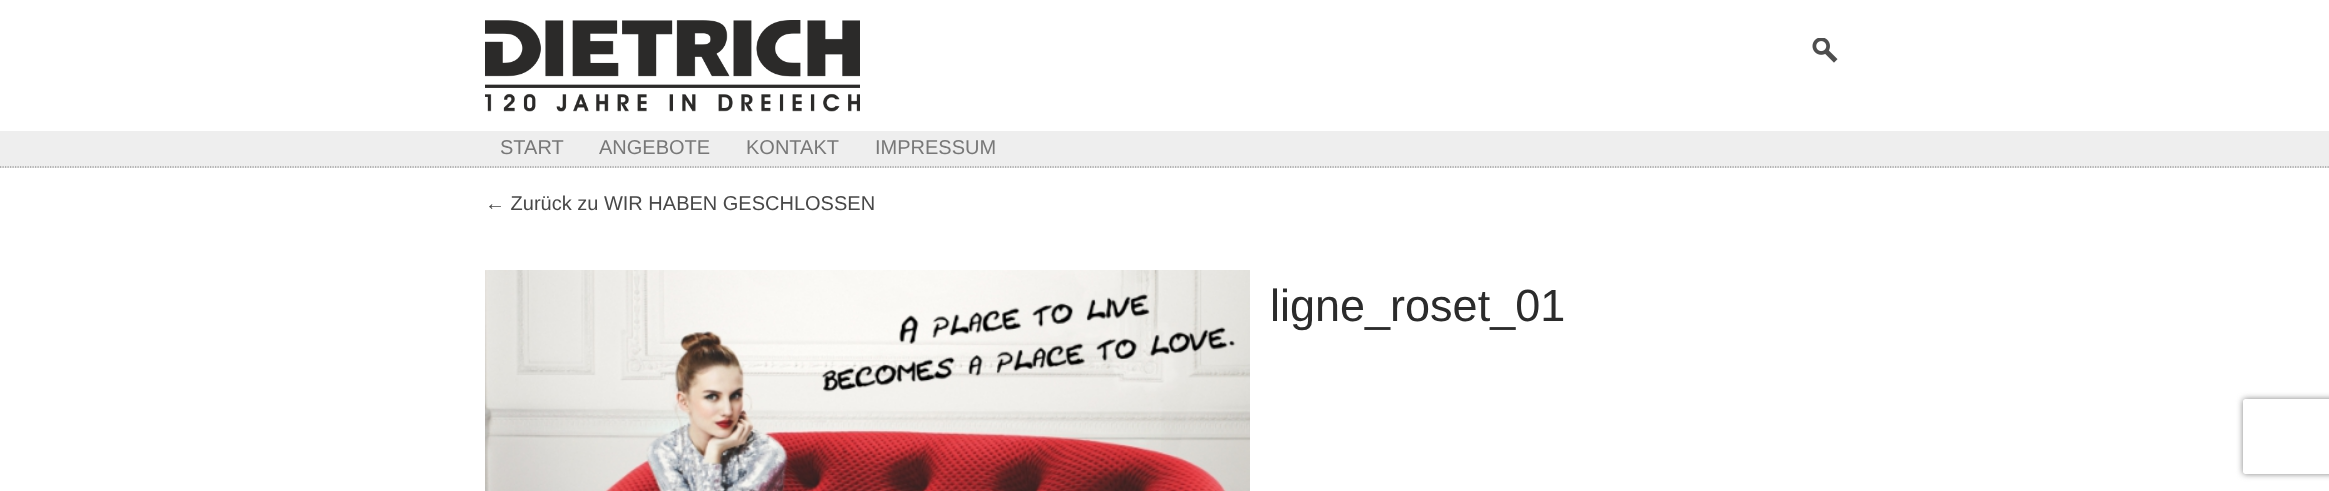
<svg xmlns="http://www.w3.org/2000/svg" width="2329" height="491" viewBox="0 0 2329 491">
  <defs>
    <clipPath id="clip1"><path d="M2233 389H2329V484H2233ZM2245.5 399H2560.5C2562 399 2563 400 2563 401.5V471.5C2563 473 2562 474 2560.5 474H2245.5C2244 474 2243 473 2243 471.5V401.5C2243 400 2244 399 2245.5 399Z" clip-rule="evenodd"/></clipPath>
  </defs>
  <rect width="100%" height="100%" fill="#fff"/>
  <image x="485" y="20" width="375" height="92" href="img/1.png"/>
  <image x="1812" y="38" width="26" height="25" href="img/2.png"/>
  <path d="M0 131h2329v37H0z" fill="#eee"/>
  <path d="M0 167H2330" fill="none" stroke="#787878" stroke-width="1.2" stroke-dasharray="1.25 1.25"/>
  <image x="485" y="270" width="765" height="221" href="img/3.png"/>
  <g clip-path="url(#clip1)">
    <rect x="2243" y="399" width="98" height="75" rx="2.5" fill="#808080" filter="blur(3px)"/>
  </g>
  <g font-family="Liberation Sans" font-size="20" fill="#787878">
    <text x="500" y="154">START</text>
    <text x="599" y="154">ANGEBOTE</text>
    <text x="746" y="154">KONTAKT</text>
    <text x="875" y="154">IMPRESSUM</text>
  </g>
  <text x="485" y="210" font-family="Liberation Sans" font-size="20" fill="#484848">← Zurück zu WIR HABEN GESCHLOSSEN</text>
  <text x="1270" y="321" font-family="Liberation Sans" font-size="45" fill="#2b2b2b">ligne_roset_01</text>
</svg>
